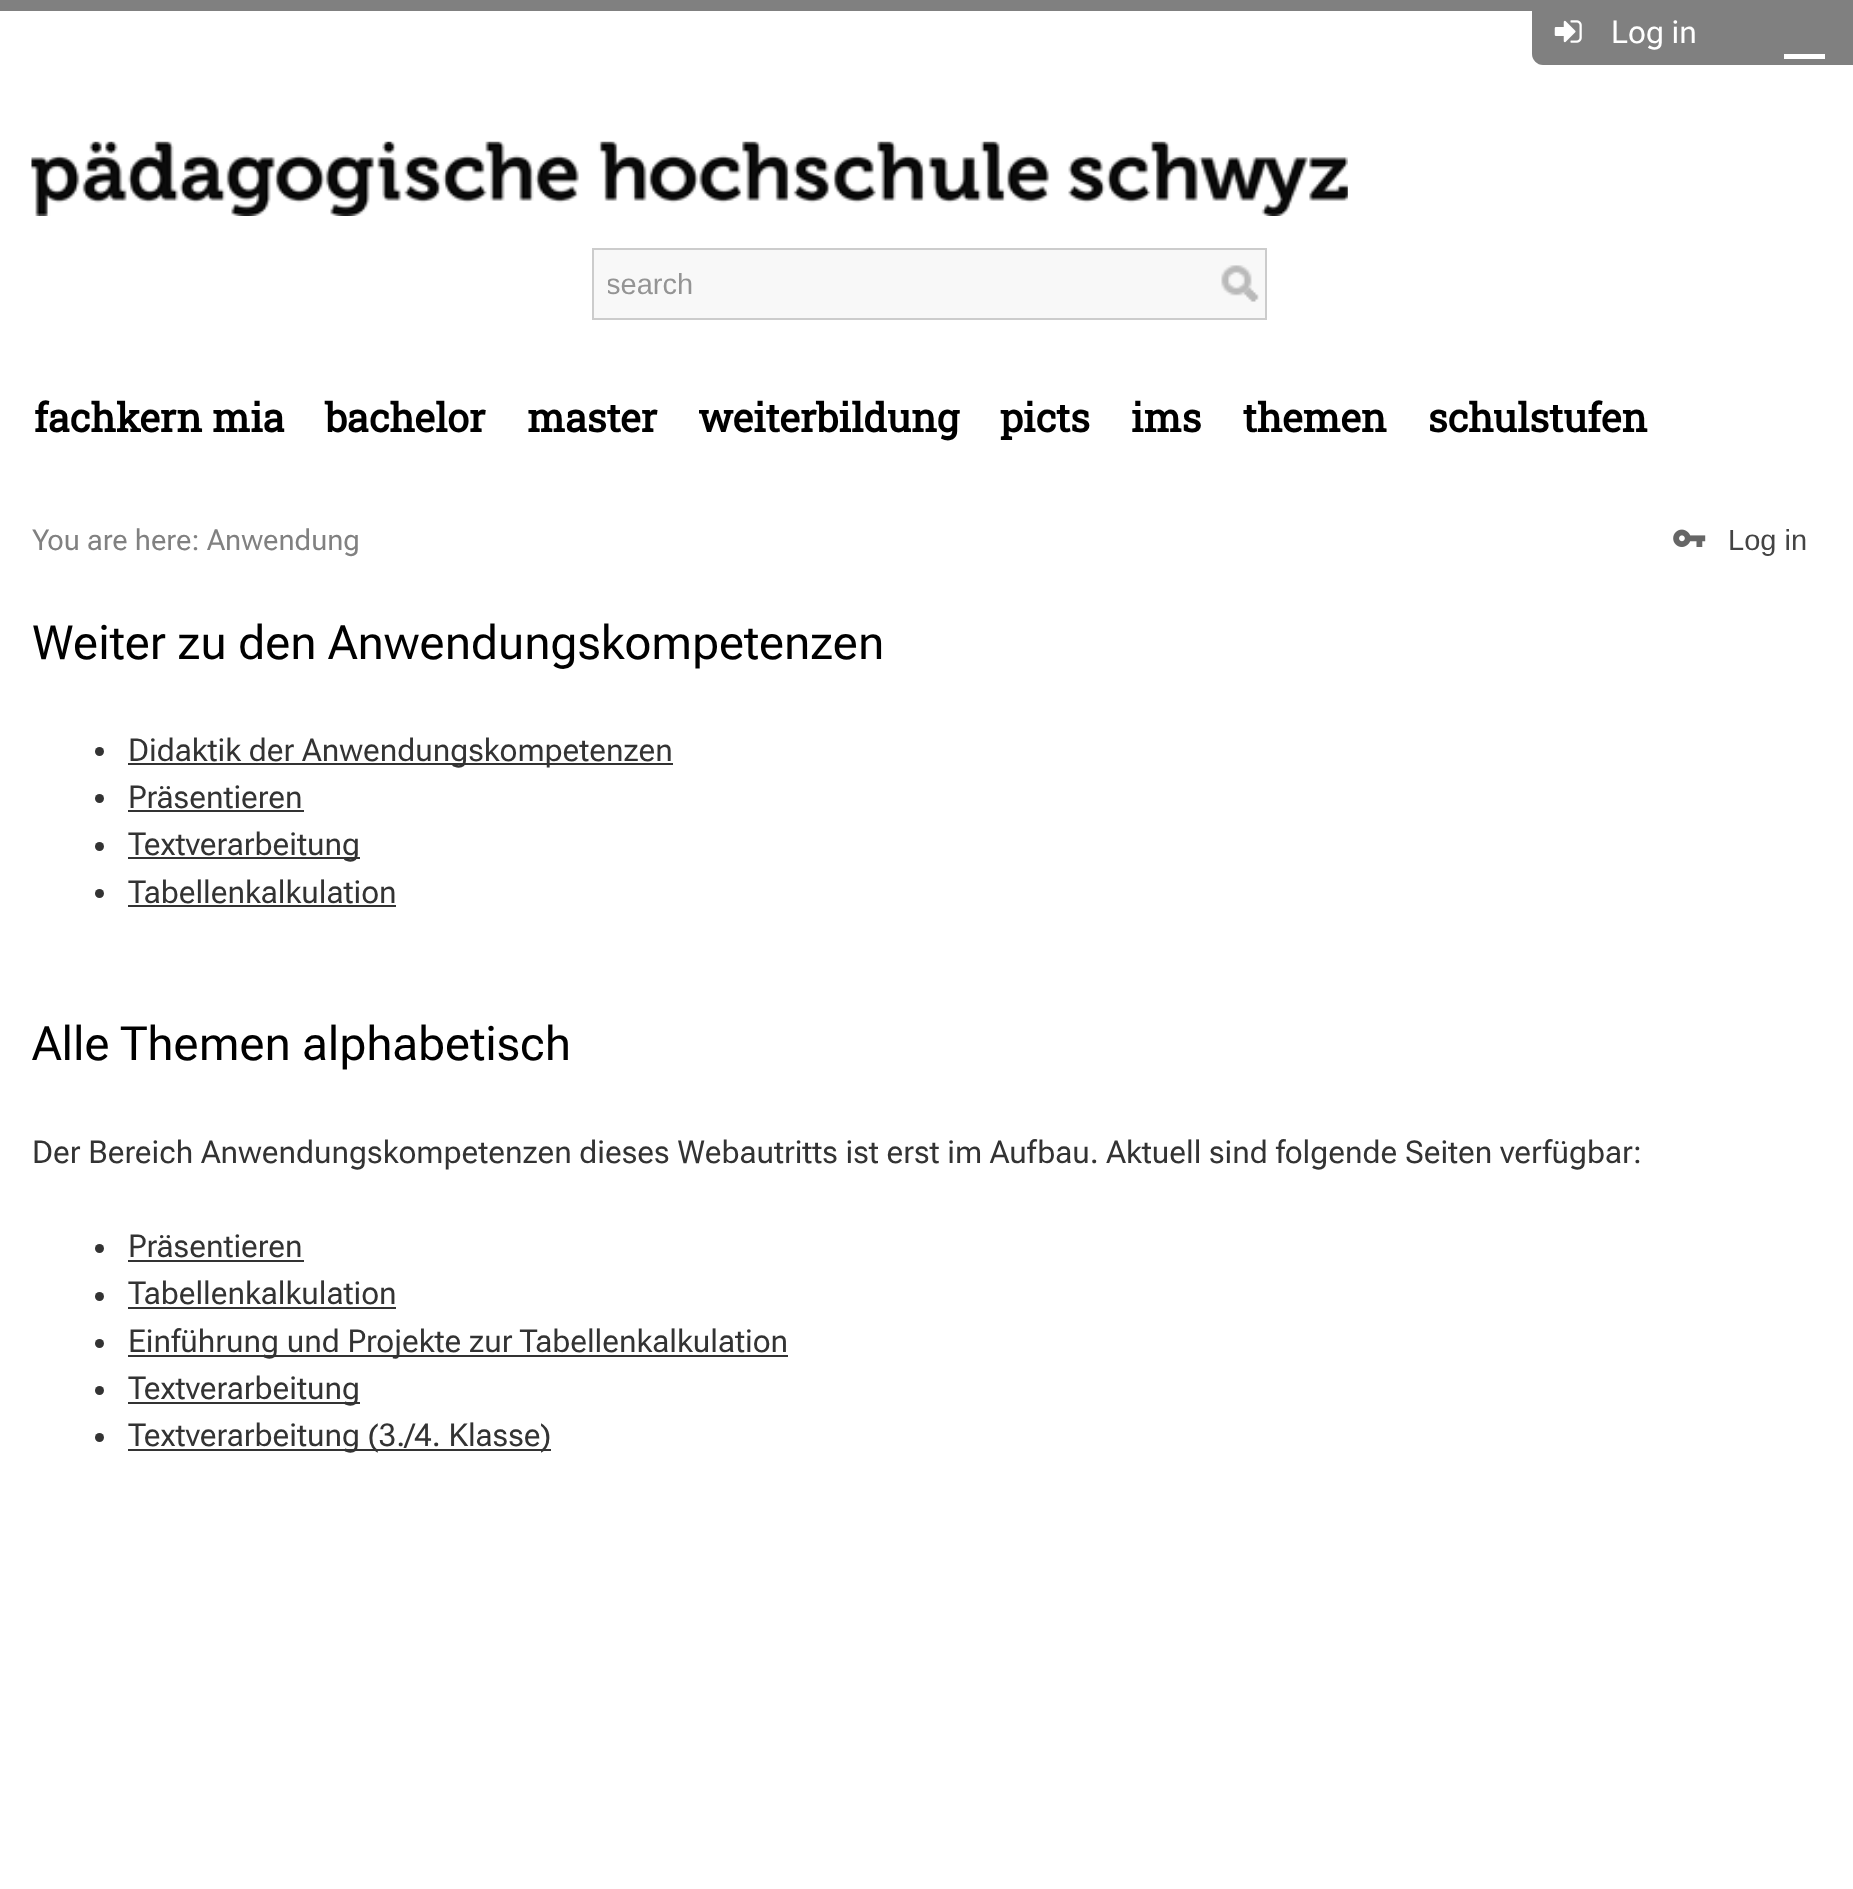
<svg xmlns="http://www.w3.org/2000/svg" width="1853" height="1889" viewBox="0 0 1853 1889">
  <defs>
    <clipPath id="clip1"><path d="M608 268h634v34H608z"/></clipPath>
  </defs>
  <rect width="100%" height="100%" fill="#fff"/>
  <path d="M0 0h1532v11H0z" fill="#808080"/>
  <path d="M1532 0H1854V65H1543C1537 65 1532 60 1532 54Z" fill="#808080"/>
  <image x="1554" y="20" width="28" height="23" href="img/1.png"/>
  <image x="31" y="141" width="1317" height="75" href="img/2.png"/>
  <path d="M1784 54H1825V59H1784ZM1784 70V65H1825V70ZM1784 81V76H1825V81Z" fill="#fff"/>
  <path d="M593 249h673v70H593z" fill="#f8f8f8" stroke="#ccc" stroke-width="2"/>
  <image x="1221" y="265" width="38" height="37" href="img/3.png"/>
  <image x="1673" y="529" width="33" height="18" href="img/4.png"/>
  <circle cx="99.5" cy="751.5" r="4.5" fill="#333"/>
  <path d="M128 763h545v2H128z" fill="#333"/>
  <circle cx="99.5" cy="798.5" r="4.5" fill="#333"/>
  <path d="M128 810h176v2H128z" fill="#333"/>
  <circle cx="99.5" cy="846.5" r="4.5" fill="#333"/>
  <path d="M128 857h232v2H128z" fill="#333"/>
  <circle cx="99.5" cy="893.5" r="4.5" fill="#333"/>
  <path d="M128 905h268v2H128z" fill="#333"/>
  <circle cx="99.5" cy="1248.5" r="4.5" fill="#333"/>
  <path d="M128 1260h176v2H128z" fill="#333"/>
  <circle cx="99.5" cy="1296.5" r="4.5" fill="#333"/>
  <path d="M128 1307h268v2H128z" fill="#333"/>
  <circle cx="99.5" cy="1343.5" r="4.5" fill="#333"/>
  <path d="M128 1355h660v2H128z" fill="#333"/>
  <circle cx="99.5" cy="1390.5" r="4.5" fill="#333"/>
  <path d="M128 1402h232v2H128z" fill="#333"/>
  <circle cx="99.5" cy="1437.5" r="4.5" fill="#333"/>
  <path d="M128 1449h423v2H128z" fill="#333"/>
  <text x="1611" y="43" font-family="Roboto Flex" font-size="31.5" font-style="italic" fill="#fff">Log in</text>
  <g clip-path="url(#clip1)">
    <text x="606" y="294" font-family="Liberation Sans" font-size="29" fill="#949494">search</text>
  </g>
  <g font-family="Roboto Slab" font-size="39.5" font-weight="bold" fill="#000">
    <text x="34" y="432">fachkern mia</text>
    <text x="325" y="432">bachelor</text>
    <text x="527" y="432">master</text>
    <text x="698" y="432">weiterbildung</text>
    <text x="1000" y="432">picts</text>
    <text x="1131" y="432">ims</text>
    <text x="1243" y="432">themen</text>
    <text x="1428" y="432">schulstufen</text>
  </g>
  <text x="32" y="550" font-family="Roboto Flex" font-size="29" font-style="italic" fill="#818181">You are here: Anwendung</text>
  <text x="1728" y="550" font-family="Liberation Sans" font-size="29" fill="#444">Log in</text>
  <text x="32" y="659" font-family="Roboto Flex" font-size="47.25" font-style="italic" fill="#000">Weiter zu den Anwendungskompetenzen</text>
  <g font-family="Roboto Flex" font-size="31.5" font-style="italic" fill="#333">
    <text x="128" y="761">Didaktik der Anwendungskompetenzen</text>
    <text x="128" y="808">Präsentieren</text>
    <text x="128" y="855">Textverarbeitung</text>
    <text x="128" y="903">Tabellenkalkulation</text>
  </g>
  <text x="32" y="1060" font-family="Roboto Flex" font-size="47.25" font-style="italic" fill="#000">Alle Themen alphabetisch</text>
  <g font-family="Roboto Flex" font-size="31.5" font-style="italic" fill="#333">
    <text x="32" y="1163">Der Bereich Anwendungskompetenzen dieses Webautritts ist erst im Aufbau. Aktuell sind folgende Seiten verfügbar:</text>
    <text x="128" y="1257">Präsentieren</text>
    <text x="128" y="1304">Tabellenkalkulation</text>
    <text x="128" y="1352">Einführung und Projekte zur Tabellenkalkulation</text>
    <text x="128" y="1399">Textverarbeitung</text>
    <text x="128" y="1446">Textverarbeitung (3./4. Klasse)</text>
  </g>
</svg>
